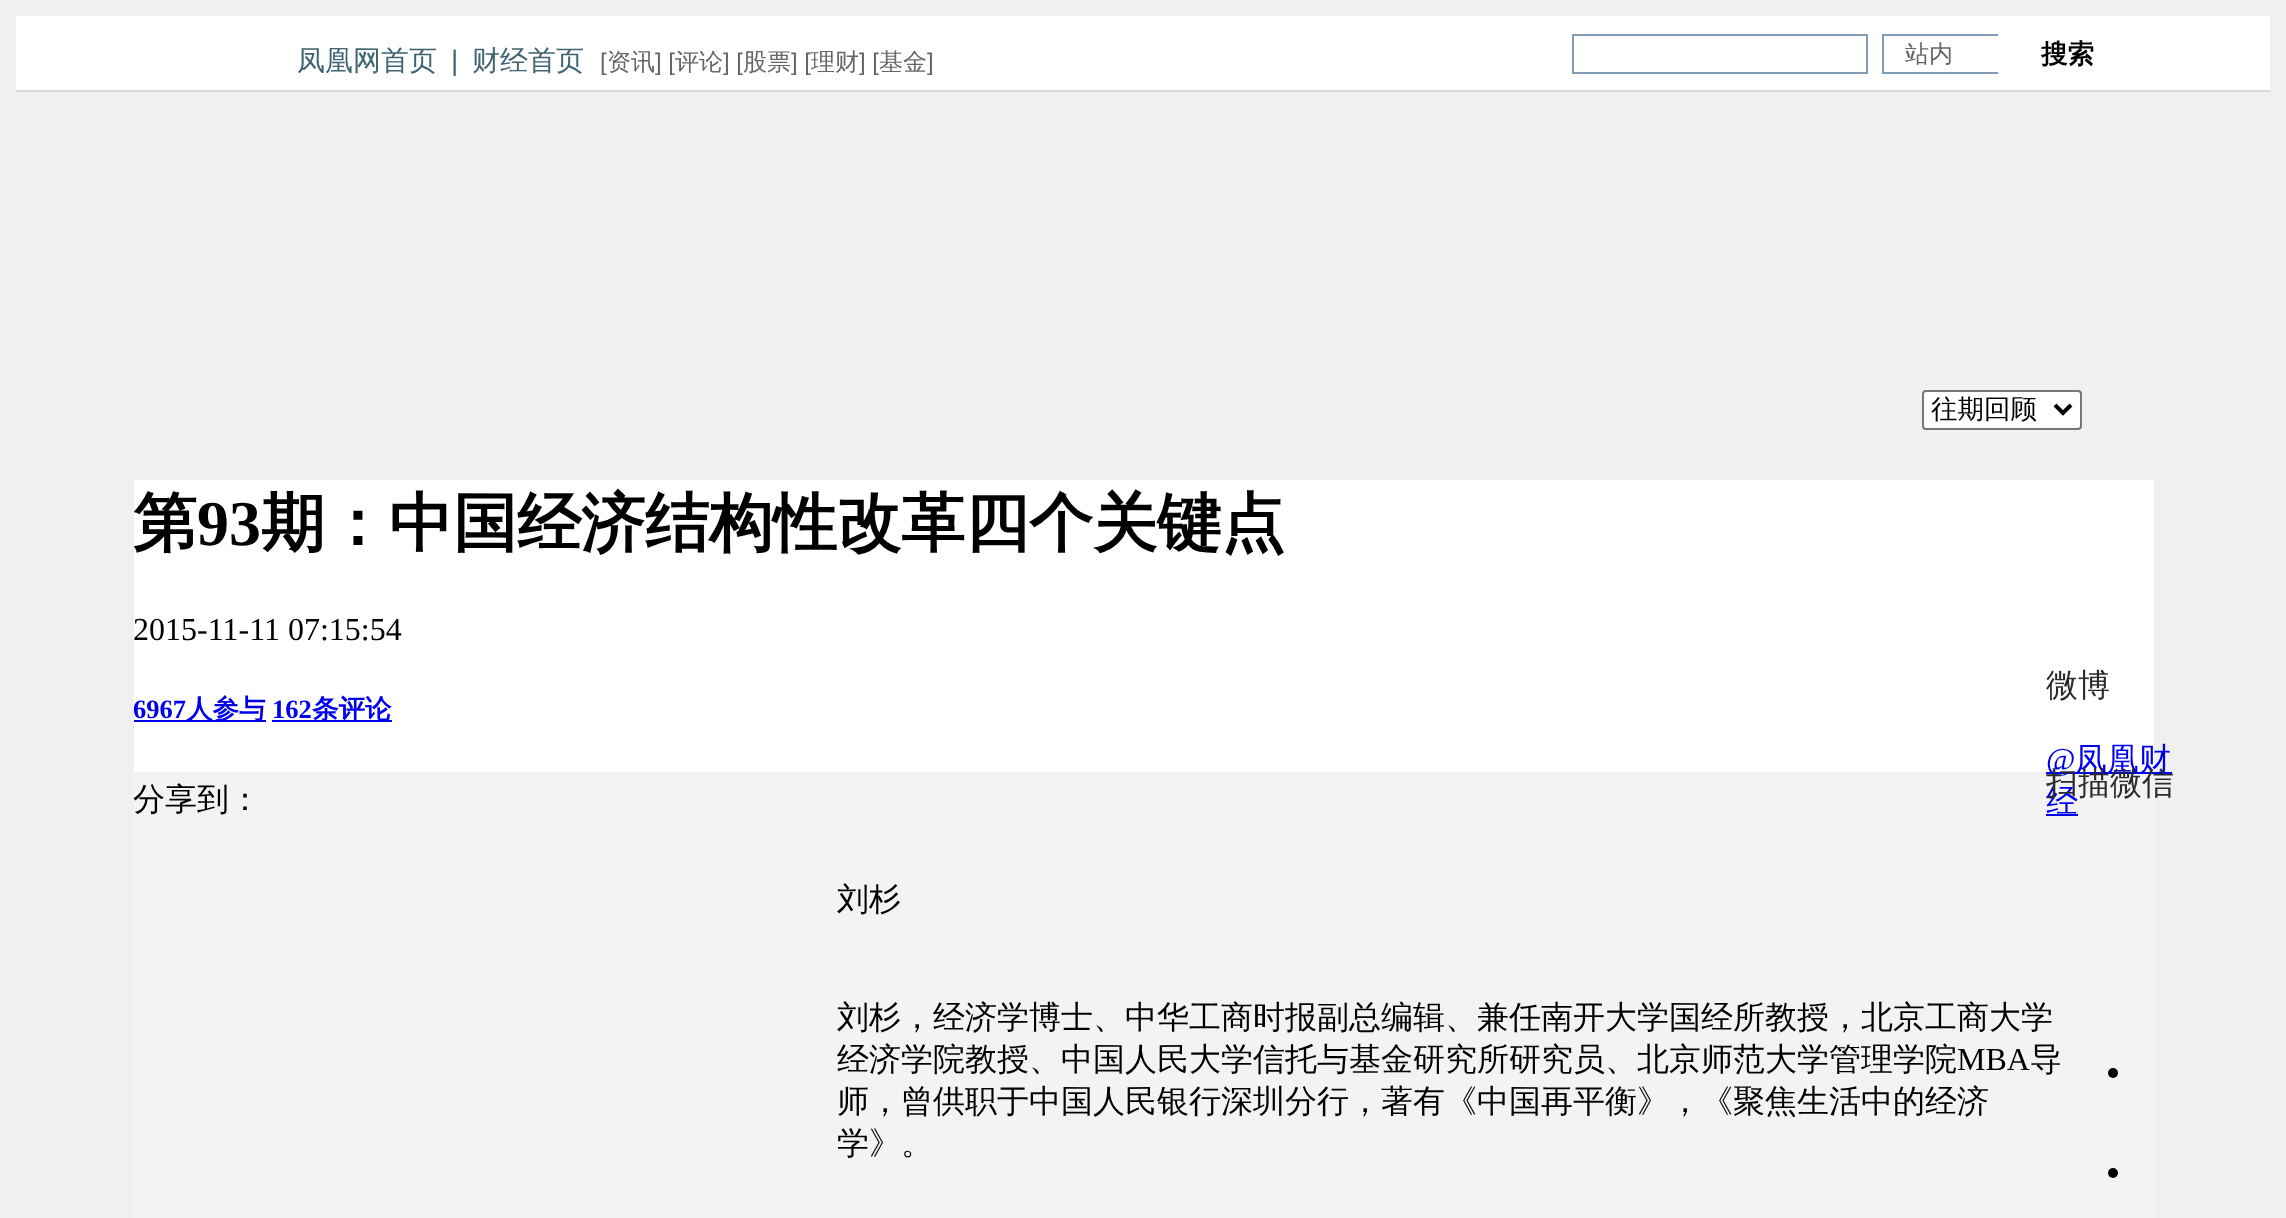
<svg xmlns="http://www.w3.org/2000/svg" width="2286" height="1218" viewBox="0 0 2286 1218">
  <rect width="100%" height="100%" fill="#f0f0f0"/>
  <path d="M16 16h2254v74H16z" fill="#fff"/>
  <path d="M1573 35h294v38H1573z" fill="none" stroke="#819bb4" stroke-width="2"/>
  <path d="M1882 34h116v2H1882z" fill="#819bb4"/>
  <path d="M1882 72h116v2H1882z" fill="#819bb4"/>
  <path d="M1882 34h2v40H1882z" fill="#819bb4"/>
  <path d="M16 90h2254v2H16z" fill="#d9d9d9"/>
  <rect x="1923" y="391" width="158" height="38" rx="3" fill="#fff" stroke="#767676" stroke-width="2"/>
  <path d="M2055 405L2063 413L2071 405" fill="none" stroke="#000" stroke-width="4"/>
  <path d="M134 480h2020v292H134z" fill="#fff"/>
  <path d="M134 720h132v2H134z" fill="#00e"/>
  <path d="M272 720h120v2H272z" fill="#00e"/>
  <path d="M134 772h2020v446H134z" fill="#f3f3f3"/>
  <path d="M2046 772h126v2H2046z" fill="#00e"/>
  <path d="M2046 814h32v2H2046z" fill="#00e"/>
  <circle cx="2113" cy="1073" r="5" fill="#000"/>
  <circle cx="2113" cy="1173" r="5" fill="#000"/>
  <text x="297" y="70" font-family="WenQuanYi Zen Hei" font-size="28" font-weight="500" fill="#416472">凤凰网首页</text>
  <text x="451" y="70" font-family="Liberation Sans" font-size="28" fill="#416472">|</text>
  <text x="472" y="70" font-family="WenQuanYi Zen Hei" font-size="28" font-weight="500" fill="#416472">财经首页</text>
  <text x="600" y="70" font-family="Liberation Sans" font-size="24" fill="#666">[</text>
  <text x="607" y="70" font-family="WenQuanYi Zen Hei" font-size="24" font-weight="500" fill="#666">资讯</text>
  <text x="655" y="70" font-family="Liberation Sans" font-size="24" fill="#666">] [</text>
  <text x="675" y="70" font-family="WenQuanYi Zen Hei" font-size="24" font-weight="500" fill="#666">评论</text>
  <text x="723" y="70" font-family="Liberation Sans" font-size="24" fill="#666">] [</text>
  <text x="743" y="70" font-family="WenQuanYi Zen Hei" font-size="24" font-weight="500" fill="#666">股票</text>
  <text x="791" y="70" font-family="Liberation Sans" font-size="24" fill="#666">] [</text>
  <text x="811" y="70" font-family="WenQuanYi Zen Hei" font-size="24" font-weight="500" fill="#666">理财</text>
  <text x="859" y="70" font-family="Liberation Sans" font-size="24" fill="#666">] [</text>
  <text x="879" y="70" font-family="WenQuanYi Zen Hei" font-size="24" font-weight="500" fill="#666">基金</text>
  <text x="927" y="70" font-family="Liberation Sans" font-size="24" fill="#666">]</text>
  <text x="1905" y="62" font-family="WenQuanYi Zen Hei" font-size="24" font-weight="500" fill="#666">站内</text>
  <text x="2041" y="63" font-family="WenQuanYi Zen Hei" font-size="26.5" font-weight="bold" fill="#000">搜索</text>
  <text x="1931" y="418" font-family="WenQuanYi Zen Hei" font-size="26.5" font-weight="500" fill="#000">往期回顾</text>
  <text x="133" y="545" font-family="WenQuanYi Zen Hei" font-size="64" font-weight="bold" fill="#000">第</text>
  <text x="197" y="545" font-family="Liberation Serif" font-size="64" font-weight="bold" fill="#000">93</text>
  <text x="261" y="545" font-family="WenQuanYi Zen Hei" font-size="64" font-weight="bold" fill="#000">期：中国经济结构性改革四个关键点</text>
  <text x="133" y="640" font-family="Liberation Serif" font-size="32" fill="#000">2015-11-11 07:15:54</text>
  <text x="133" y="718" font-family="Liberation Serif" font-size="26.5" font-weight="bold" fill="#00e">6967</text>
  <text x="186" y="718" font-family="WenQuanYi Zen Hei" font-size="26.5" font-weight="bold" fill="#00e">人参与</text>
  <text x="272" y="718" font-family="Liberation Serif" font-size="26.5" font-weight="bold" fill="#00e">162</text>
  <text x="312" y="718" font-family="WenQuanYi Zen Hei" font-size="26.5" font-weight="bold" fill="#00e">条评论</text>
  <g font-family="WenQuanYi Zen Hei" font-size="32" font-weight="500" fill="#000">
    <text x="133" y="810">分享到：</text>
    <text x="837" y="910">刘杉</text>
    <text x="837" y="1028">刘杉，经济学博士、中华工商时报副总编辑、兼任南开大学国经所教授，北京工商大学</text>
    <text x="837" y="1070">经济学院教授、中国人民大学信托与基金研究所研究员、北京师范大学管理学院</text>
  </g>
  <text x="1957" y="1070" font-family="Liberation Serif" font-size="32" fill="#000">MBA</text>
  <g font-family="WenQuanYi Zen Hei" font-size="32" font-weight="500" fill="#000">
    <text x="2030" y="1070">导</text>
    <text x="837" y="1112">师，曾供职于中国人民银行深圳分行，著有《中国再平衡》，《聚焦生活中的经济</text>
    <text x="837" y="1154">学》。</text>
  </g>
  <text x="2046" y="696" font-family="WenQuanYi Zen Hei" font-size="32" font-weight="500" fill="#2b2b2b">微博</text>
  <text x="2046" y="770" font-family="Liberation Serif" font-size="32" fill="#00e">@</text>
  <g font-family="WenQuanYi Zen Hei" font-size="32" font-weight="500" fill="#00e">
    <text x="2075" y="770">凤凰财</text>
    <text x="2046" y="812">经</text>
  </g>
  <text x="2046" y="794" font-family="WenQuanYi Zen Hei" font-size="32" font-weight="500" fill="#2b2b2b">扫描微信</text>
</svg>
